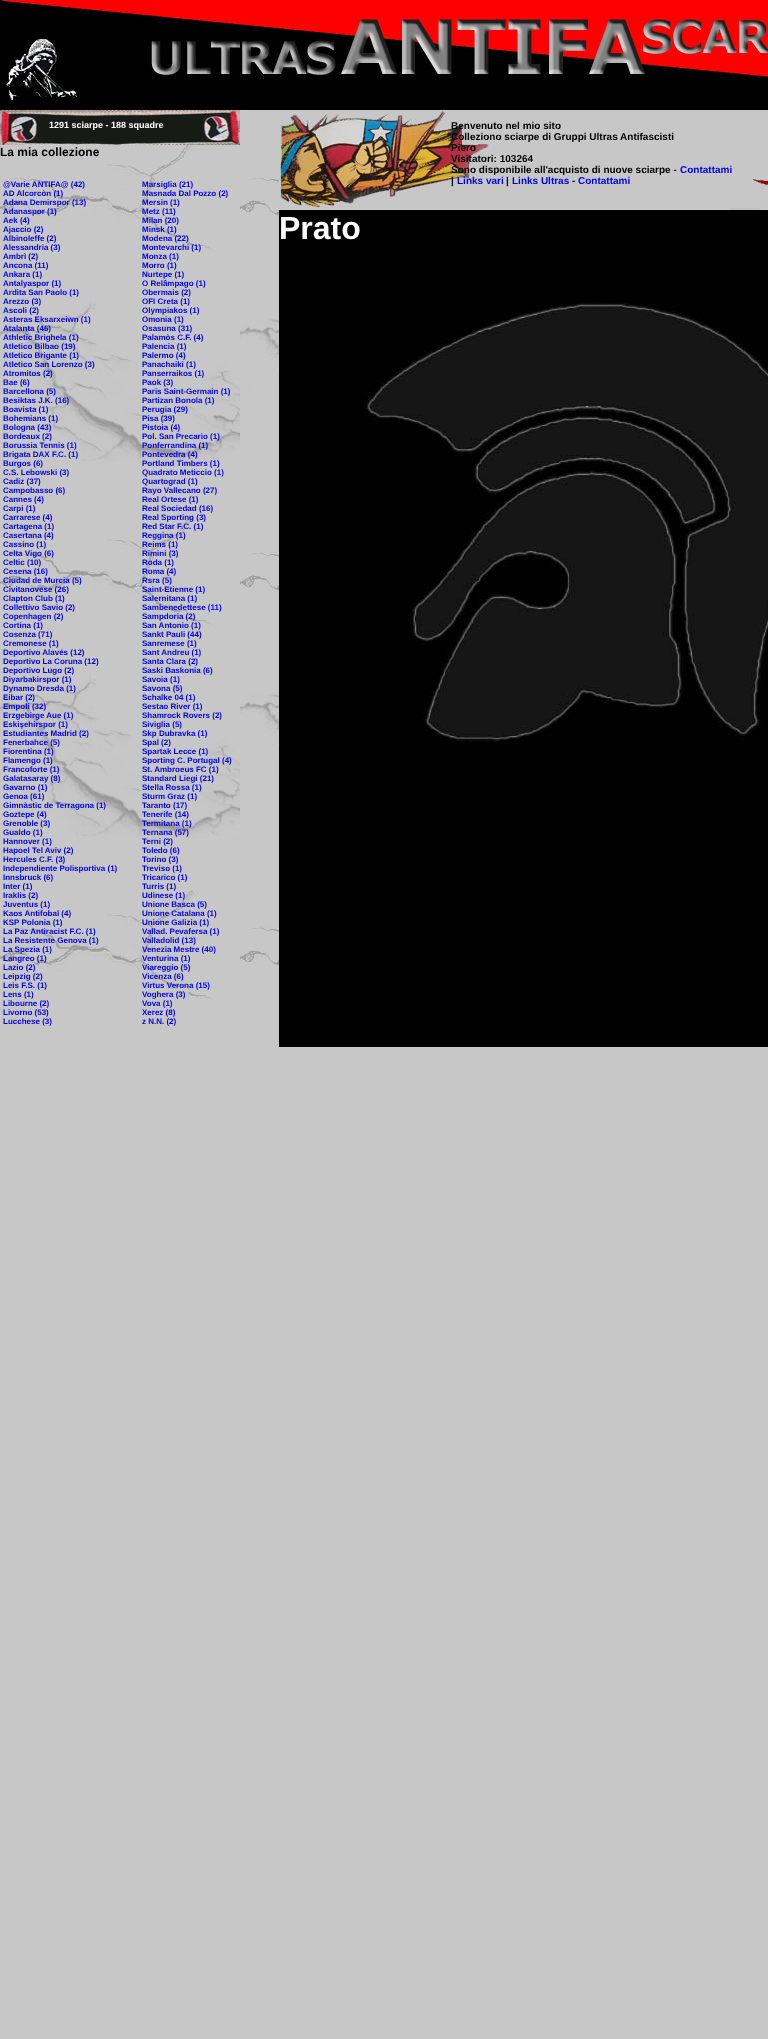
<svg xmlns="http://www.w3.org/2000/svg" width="768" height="2039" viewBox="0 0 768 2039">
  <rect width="100%" height="100%" fill="#c7c7c7"/>
  <image x="0" y="0" width="768" height="100" href="img/1.png"/>
  <path d="M0 100h768v10H0z" fill="#000"/>
  <image x="0" y="140" width="279" height="861" href="img/2.png"/>
  <image x="0" y="110" width="240" height="35" href="img/3.png"/>
  <image x="279" y="210" width="489" height="837" href="img/4.png"/>
  <image x="279" y="110" width="489" height="100" href="img/5.png"/>
  <text x="3" y="187" font-family="Liberation Sans" font-size="8" font-weight="bold" fill="#00e">@Varie ANTIFA@ (42)</text>
  <g font-family="Liberation Sans" font-size="10" font-weight="bold" fill="#000">
    <text x="451" y="129">Benvenuto nel mio sito</text>
    <text x="451" y="140">Colleziono sciarpe di Gruppi Ultras Antifascisti</text>
    <text x="451" y="151">Piero</text>
    <text x="451" y="162">Visitatori: 103264</text>
    <text x="451" y="173">Sono disponibile all'acquisto di nuove sciarpe -</text>
  </g>
  <text x="680" y="173" font-family="Liberation Sans" font-size="10" font-weight="bold" fill="#00e">Contattami</text>
  <text x="451" y="184" font-family="Liberation Sans" font-size="10" font-weight="bold" fill="#000">|</text>
  <text x="457" y="184" font-family="Liberation Sans" font-size="10" font-weight="bold" fill="#00e">Links vari</text>
  <text x="506" y="184" font-family="Liberation Sans" font-size="10" font-weight="bold" fill="#000">|</text>
  <text x="512" y="184" font-family="Liberation Sans" font-size="10" font-weight="bold" fill="#00e">Links Ultras</text>
  <text x="572" y="184" font-family="Liberation Sans" font-size="10" font-weight="bold" fill="#000">-</text>
  <text x="578" y="184" font-family="Liberation Sans" font-size="10" font-weight="bold" fill="#00e">Contattami</text>
  <g font-family="Liberation Sans" font-size="8" font-weight="bold" fill="#00e">
    <text x="3" y="196">AD Alcorcòn (1)</text>
    <text x="3" y="205">Adana Demirspor (13)</text>
    <text x="3" y="214">Adanaspor (1)</text>
    <text x="3" y="223">Aek (4)</text>
    <text x="3" y="232">Ajaccio (2)</text>
    <text x="3" y="241">Albinoleffe (2)</text>
    <text x="3" y="250">Alessandria (3)</text>
    <text x="3" y="259">Ambrì (2)</text>
    <text x="3" y="268">Ancona (11)</text>
    <text x="3" y="277">Ankara (1)</text>
    <text x="3" y="286">Antalyaspor (1)</text>
    <text x="3" y="295">Ardita San Paolo (1)</text>
    <text x="3" y="304">Arezzo (3)</text>
    <text x="3" y="313">Ascoli (2)</text>
    <text x="3" y="322">Asteras Eksarxeiwn (1)</text>
    <text x="3" y="331">Atalanta (46)</text>
    <text x="3" y="340">Athletic Brighela (1)</text>
    <text x="3" y="349">Atletico Bilbao (19)</text>
    <text x="3" y="358">Atletico Brigante (1)</text>
    <text x="3" y="367">Atletico San Lorenzo (3)</text>
    <text x="3" y="376">Atromitos (2)</text>
    <text x="3" y="385">Bae (6)</text>
    <text x="3" y="394">Barcellona (5)</text>
    <text x="3" y="403">Besiktas J.K. (16)</text>
    <text x="3" y="412">Boavista (1)</text>
    <text x="3" y="421">Bohemians (1)</text>
    <text x="3" y="430">Bologna (43)</text>
    <text x="3" y="439">Bordeaux (2)</text>
    <text x="3" y="448">Borussia Tennis (1)</text>
    <text x="3" y="457">Brigata DAX F.C. (1)</text>
    <text x="3" y="466">Burgos (6)</text>
    <text x="3" y="475">C.S. Lebowski (3)</text>
    <text x="3" y="484">Cadiz (37)</text>
    <text x="3" y="493">Campobasso (6)</text>
    <text x="3" y="502">Cannes (4)</text>
    <text x="3" y="511">Carpi (1)</text>
    <text x="3" y="520">Carrarese (4)</text>
    <text x="3" y="529">Cartagena (1)</text>
    <text x="3" y="538">Casertana (4)</text>
    <text x="3" y="547">Cassino (1)</text>
    <text x="3" y="556">Celta Vigo (6)</text>
    <text x="3" y="565">Celtic (10)</text>
    <text x="3" y="574">Cesena (16)</text>
    <text x="3" y="583">Ciudad de Murcia (5)</text>
    <text x="3" y="592">Civitanovese (26)</text>
    <text x="3" y="601">Clapton Club (1)</text>
    <text x="3" y="610">Collettivo Savio (2)</text>
    <text x="3" y="619">Copenhagen (2)</text>
    <text x="3" y="628">Cortina (1)</text>
    <text x="3" y="637">Cosenza (71)</text>
    <text x="3" y="646">Cremonese (1)</text>
    <text x="3" y="655">Deportivo Alavés (12)</text>
    <text x="3" y="664">Deportivo La Coruna (12)</text>
    <text x="3" y="673">Deportivo Lugo (2)</text>
    <text x="3" y="682">Diyarbakirspor (1)</text>
    <text x="3" y="691">Dynamo Dresda (1)</text>
    <text x="3" y="700">Eibar (2)</text>
    <text x="3" y="709">Empoli (32)</text>
    <text x="3" y="718">Erzgebirge Aue (1)</text>
    <text x="3" y="727">Eskişehirspor (1)</text>
    <text x="3" y="736">Estudiantes Madrid (2)</text>
    <text x="3" y="745">Fenerbahce (5)</text>
    <text x="3" y="754">Fiorentina (1)</text>
    <text x="3" y="763">Flamengo (1)</text>
    <text x="3" y="772">Francoforte (1)</text>
    <text x="3" y="781">Galatasaray (8)</text>
    <text x="3" y="790">Gavarno (1)</text>
    <text x="3" y="799">Genoa (61)</text>
    <text x="3" y="808">Gimnàstic de Terragona (1)</text>
    <text x="3" y="817">Goztepe (4)</text>
    <text x="3" y="826">Grenoble (3)</text>
    <text x="3" y="835">Gualdo (1)</text>
    <text x="3" y="844">Hannover (1)</text>
    <text x="3" y="853">Hapoel Tel Aviv (2)</text>
    <text x="3" y="862">Hercules C.F. (3)</text>
    <text x="3" y="871">Independiente Polisportiva (1)</text>
    <text x="3" y="880">Innsbruck (6)</text>
    <text x="3" y="889">Inter (1)</text>
    <text x="3" y="898">Iraklis (2)</text>
    <text x="3" y="907">Juventus (1)</text>
    <text x="3" y="916">Kaos Antifobal (4)</text>
    <text x="3" y="925">KSP Polonia (1)</text>
    <text x="3" y="934">La Paz Antiracist F.C. (1)</text>
    <text x="3" y="943">La Resistente Genova (1)</text>
    <text x="3" y="952">La Spezia (1)</text>
    <text x="3" y="961">Langreo (1)</text>
    <text x="3" y="970">Lazio (2)</text>
    <text x="3" y="979">Leipzig (2)</text>
    <text x="3" y="988">Leis F.S. (1)</text>
    <text x="3" y="997">Lens (1)</text>
    <text x="3" y="1006">Libourne (2)</text>
    <text x="3" y="1015">Livorno (53)</text>
    <text x="3" y="1024">Lucchese (3)</text>
    <text x="142" y="187">Marsiglia (21)</text>
    <text x="142" y="196">Masnada Dal Pozzo (2)</text>
    <text x="142" y="205">Mersin (1)</text>
    <text x="142" y="214">Metz (11)</text>
    <text x="142" y="223">Milan (20)</text>
    <text x="142" y="232">Minsk (1)</text>
    <text x="142" y="241">Modena (22)</text>
    <text x="142" y="250">Montevarchi (1)</text>
    <text x="142" y="259">Monza (1)</text>
    <text x="142" y="268">Morro (1)</text>
    <text x="142" y="277">Nurtepe (1)</text>
    <text x="142" y="286">O Relâmpago (1)</text>
    <text x="142" y="295">Obermais (2)</text>
    <text x="142" y="304">OFI Creta (1)</text>
    <text x="142" y="313">Olympiakos (1)</text>
    <text x="142" y="322">Omonia (1)</text>
    <text x="142" y="331">Osasuna (31)</text>
    <text x="142" y="340">Palamòs C.F. (4)</text>
    <text x="142" y="349">Palencia (1)</text>
    <text x="142" y="358">Palermo (4)</text>
    <text x="142" y="367">Panachaiki (1)</text>
    <text x="142" y="376">Panserraikos (1)</text>
    <text x="142" y="385">Paok (3)</text>
    <text x="142" y="394">Paris Saint-Germain (1)</text>
    <text x="142" y="403">Partizan Bonola (1)</text>
    <text x="142" y="412">Perugia (29)</text>
    <text x="142" y="421">Pisa (39)</text>
    <text x="142" y="430">Pistoia (4)</text>
    <text x="142" y="439">Pol. San Precario (1)</text>
    <text x="142" y="448">Ponferrandina (1)</text>
    <text x="142" y="457">Pontevedra (4)</text>
    <text x="142" y="466">Portland Timbers (1)</text>
    <text x="142" y="475">Quadrato Meticcio (1)</text>
    <text x="142" y="484">Quartograd (1)</text>
    <text x="142" y="493">Rayo Vallecano (27)</text>
    <text x="142" y="502">Real Ortese (1)</text>
    <text x="142" y="511">Real Sociedad (16)</text>
    <text x="142" y="520">Real Sporting (3)</text>
    <text x="142" y="529">Red Star F.C. (1)</text>
    <text x="142" y="538">Reggina (1)</text>
    <text x="142" y="547">Reims (1)</text>
    <text x="142" y="556">Rimini (3)</text>
    <text x="142" y="565">Roda (1)</text>
    <text x="142" y="574">Roma (4)</text>
    <text x="142" y="583">Rsra (5)</text>
    <text x="142" y="592">Saint-Etienne (1)</text>
    <text x="142" y="601">Salernitana (1)</text>
    <text x="142" y="610">Sambenedettese (11)</text>
    <text x="142" y="619">Sampdoria (2)</text>
    <text x="142" y="628">San Antonio (1)</text>
    <text x="142" y="637">Sankt Pauli (44)</text>
    <text x="142" y="646">Sanremese (1)</text>
    <text x="142" y="655">Sant Andreu (1)</text>
    <text x="142" y="664">Santa Clara (2)</text>
    <text x="142" y="673">Saski Baskonia (6)</text>
    <text x="142" y="682">Savoia (1)</text>
    <text x="142" y="691">Savona (5)</text>
    <text x="142" y="700">Schalke 04 (1)</text>
    <text x="142" y="709">Sestao River (1)</text>
    <text x="142" y="718">Shamrock Rovers (2)</text>
    <text x="142" y="727">Siviglia (5)</text>
    <text x="142" y="736">Skp Dubravka (1)</text>
    <text x="142" y="745">Spal (2)</text>
    <text x="142" y="754">Spartak Lecce (1)</text>
    <text x="142" y="763">Sporting C. Portugal (4)</text>
    <text x="142" y="772">St. Ambroeus FC (1)</text>
    <text x="142" y="781">Standard Liegi (21)</text>
    <text x="142" y="790">Stella Rossa (1)</text>
    <text x="142" y="799">Sturm Graz (1)</text>
    <text x="142" y="808">Taranto (17)</text>
    <text x="142" y="817">Tenerife (14)</text>
    <text x="142" y="826">Termitana (1)</text>
    <text x="142" y="835">Ternana (57)</text>
    <text x="142" y="844">Terni (2)</text>
    <text x="142" y="853">Toledo (6)</text>
    <text x="142" y="862">Torino (3)</text>
    <text x="142" y="871">Treviso (1)</text>
    <text x="142" y="880">Tricarico (1)</text>
    <text x="142" y="889">Turris (1)</text>
    <text x="142" y="898">Udinese (1)</text>
    <text x="142" y="907">Unione Basca (5)</text>
    <text x="142" y="916">Unione Catalana (1)</text>
    <text x="142" y="925">Unione Galizia (1)</text>
    <text x="142" y="934">Vallad. Pevafersa (1)</text>
    <text x="142" y="943">Valladolid (13)</text>
    <text x="142" y="952">Venezia Mestre (40)</text>
    <text x="142" y="961">Venturina (1)</text>
    <text x="142" y="970">Viareggio (5)</text>
    <text x="142" y="979">Vicenza (6)</text>
    <text x="142" y="988">Virtus Verona (15)</text>
    <text x="142" y="997">Voghera (3)</text>
    <text x="142" y="1006">Vova (1)</text>
    <text x="142" y="1015">Xerez (8)</text>
    <text x="142" y="1024">z N.N. (2)</text>
  </g>
  <text x="49" y="128" font-family="Liberation Sans" font-size="9" font-weight="bold" fill="#fff">1291 sciarpe - 188 squadre</text>
  <text x="0" y="156" font-family="Liberation Sans" font-size="12" font-weight="bold" fill="#000">La mia collezione</text>
  <text x="279" y="239" font-family="Liberation Sans" font-size="32" font-weight="bold" fill="#fff">Prato</text>
</svg>
